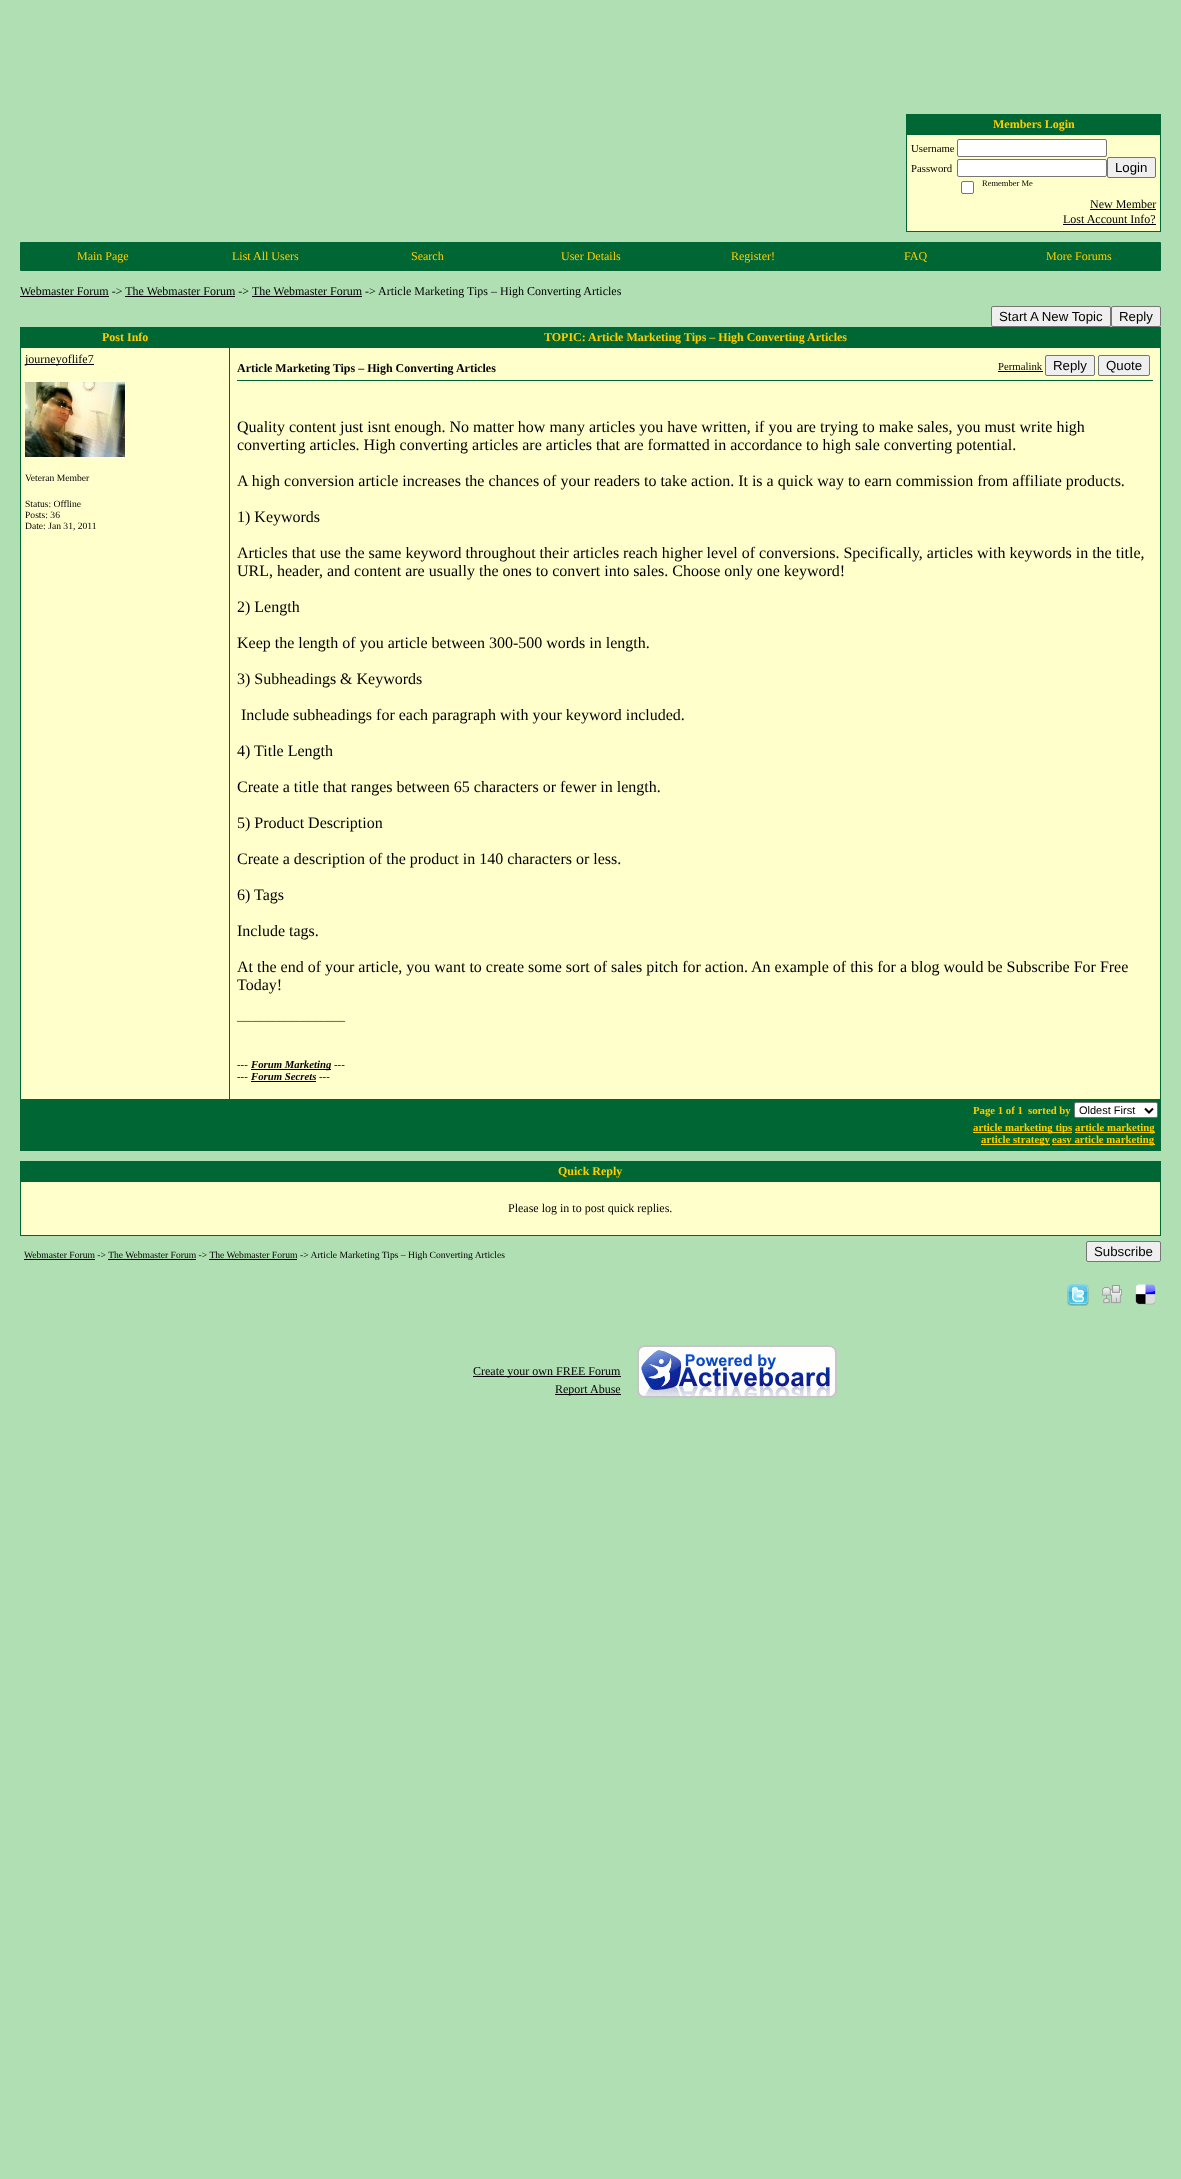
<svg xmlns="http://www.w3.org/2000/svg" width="1181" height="2179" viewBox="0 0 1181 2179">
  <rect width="100%" height="100%" fill="#b1dfb4"/>
  <path d="M906 114h255v1H906z" fill="#063"/>
  <path d="M1160 114h1v118H1160z" fill="#063"/>
  <path d="M906 231h255v1H906z" fill="#063"/>
  <path d="M906 114h1v118H906z" fill="#063"/>
  <path d="M907 115h253v19H907z" fill="#063"/>
  <path d="M906 134h255v1H906z" fill="#063"/>
  <path d="M907 135h253v96H907z" fill="#ffc"/>
  <rect x="957.5" y="139.5" width="149" height="17" rx="1.5" fill="#fff" stroke="#767676"/>
  <rect x="957.5" y="159.5" width="149" height="17" rx="1.5" fill="#fff" stroke="#767676"/>
  <rect x="1107.5" y="157.5" width="48" height="20" rx="1.5" fill="#efefef" stroke="#767676"/>
  <rect x="961.5" y="181.5" width="12" height="12" rx="1.5" fill="#fff" stroke="#767676"/>
  <path d="M1090 209h66v1H1090z" fill="#000"/>
  <path d="M1063 224h93v1H1063z" fill="#000"/>
  <path d="M20.5 242.5h1140v28H20.5z" fill="none" stroke="#063"/>
  <path d="M21 243h1139v27H21z" fill="#063"/>
  <path d="M20 296h89v1H20z" fill="#000"/>
  <path d="M125 296h110v1H125z" fill="#000"/>
  <path d="M252 296h110v1H252z" fill="#000"/>
  <rect x="991.5" y="306.5" width="119" height="20" rx="1.5" fill="#efefef" stroke="#767676"/>
  <rect x="1111.5" y="306.5" width="49" height="20" rx="1.5" fill="#efefef" stroke="#767676"/>
  <path d="M20 327h1141v1H20z" fill="#063"/>
  <path d="M1160 327h1v824H1160z" fill="#063"/>
  <path d="M20 1150h1141v1H20z" fill="#063"/>
  <path d="M20 327h1v824H20z" fill="#063"/>
  <path d="M21 328h208v19H21z" fill="#063"/>
  <path d="M229 347h932v1H229z" fill="#063"/>
  <path d="M20 1099h1141v1H20z" fill="#063"/>
  <path d="M229 347h1v753H229z" fill="#063"/>
  <path d="M20 347h210v1H20z" fill="#063"/>
  <path d="M229 327h1v21H229z" fill="#063"/>
  <path d="M230 328h930v19H230z" fill="#063"/>
  <path d="M21 348h208v751H21z" fill="#ffc"/>
  <path d="M25 364h69v1H25z" fill="#000"/>
  <image x="25" y="382" width="100" height="75" href="img/1.png"/>
  <path d="M230 348h930v751H230z" fill="#ffc"/>
  <path d="M998 371h45v1H998z" fill="#000"/>
  <rect x="1045.5" y="355.5" width="49" height="20" rx="1.5" fill="#efefef" stroke="#767676"/>
  <rect x="1098.5" y="355.5" width="51" height="20" rx="1.5" fill="#efefef" stroke="#767676"/>
  <path d="M237 380h916v1H237z" fill="#063"/>
  <path d="M251 1069h80v1H251z" fill="#000"/>
  <path d="M251 1081h65v1H251z" fill="#000"/>
  <path d="M21 1100h1139v50H21z" fill="#063"/>
  <rect x="1074.5" y="1102.5" width="83" height="15" rx="1.5" fill="#fff" stroke="#767676"/>
  <path d="M1145 1108.5L1149 1112.5L1153 1108.5" fill="none" stroke="#000" stroke-width="2"/>
  <path d="M973 1132h99v1H973z" fill="#fc0"/>
  <path d="M1075 1132h80v1H1075z" fill="#fc0"/>
  <path d="M981 1144h69v1H981z" fill="#fc0"/>
  <path d="M1052 1144h103v1H1052z" fill="#fc0"/>
  <path d="M20 1161h1141v1H20z" fill="#063"/>
  <path d="M1160 1161h1v75H1160z" fill="#063"/>
  <path d="M20 1235h1141v1H20z" fill="#063"/>
  <path d="M20 1161h1v75H20z" fill="#063"/>
  <path d="M21 1162h1139v19H21z" fill="#063"/>
  <path d="M20 1181h1141v1H20z" fill="#063"/>
  <path d="M21 1182h1139v53H21z" fill="#ffc"/>
  <path d="M24 1259h71v1H24z" fill="#000"/>
  <path d="M108 1259h88v1H108z" fill="#000"/>
  <path d="M209 1259h88v1H209z" fill="#000"/>
  <rect x="1086.5" y="1241.5" width="74" height="20" rx="1.5" fill="#efefef" stroke="#767676"/>
  <image x="1067" y="1284" width="22" height="22" href="img/2.png"/>
  <image x="1102" y="1285" width="20" height="19" href="img/3.png"/>
  <image x="1135" y="1284" width="21" height="21" href="img/4.png"/>
  <path d="M473 1376h148v1H473z" fill="#000"/>
  <path d="M555 1394h66v1H555z" fill="#000"/>
  <image x="637" y="1345" width="200" height="53" href="img/5.png"/>
  <text x="993" y="128" font-family="Liberation Serif" font-size="12" font-weight="bold" fill="#fc0">Members Login</text>
  <g font-family="Liberation Serif" font-size="10.75" fill="#000">
    <text x="911" y="152">Username</text>
    <text x="911" y="172">Password</text>
  </g>
  <text x="1115" y="172" font-family="Liberation Sans" font-size="13.25" fill="#000">Login</text>
  <text x="982" y="186" font-family="Liberation Serif" font-size="8.5" fill="#000">Remember Me</text>
  <g font-family="Liberation Serif" font-size="12" fill="#000">
    <text x="1090" y="208">New Member</text>
    <text x="1063" y="223">Lost Account Info?</text>
  </g>
  <g font-family="Liberation Serif" font-size="12" fill="#fc0">
    <text x="77" y="260">Main Page</text>
    <text x="232" y="260">List All Users</text>
    <text x="411" y="260">Search</text>
    <text x="561" y="260">User Details</text>
    <text x="731" y="260">Register!</text>
    <text x="904" y="260">FAQ</text>
    <text x="1046" y="260">More Forums</text>
  </g>
  <g font-family="Liberation Serif" font-size="12" fill="#000">
    <text x="20" y="295">Webmaster Forum -&gt; The Webmaster Forum -&gt; The Webmaster Forum</text>
    <text x="365" y="295">-&gt;</text>
    <text x="378" y="295">Article Marketing Tips – High Converting Articles</text>
  </g>
  <g font-family="Liberation Sans" font-size="13.25" fill="#000">
    <text x="999" y="321">Start A New Topic</text>
    <text x="1119" y="321">Reply</text>
  </g>
  <g font-family="Liberation Serif" font-size="12" font-weight="bold" fill="#fc0">
    <text x="102" y="341">Post Info</text>
    <text x="544" y="341">TOPIC: Article Marketing Tips – High Converting Articles</text>
  </g>
  <text x="25" y="363" font-family="Liberation Serif" font-size="12" fill="#000">journeyoflife7</text>
  <g font-family="Liberation Serif" font-size="9.6" fill="#000">
    <text x="25" y="481">Veteran Member</text>
    <text x="25" y="507">Status: Offline</text>
    <text x="25" y="518">Posts: 36</text>
    <text x="25" y="529">Date: Jan 31, 2011</text>
  </g>
  <text x="237" y="372" font-family="Liberation Serif" font-size="12" font-weight="bold" fill="#000">Article Marketing Tips – High Converting Articles</text>
  <text x="998" y="370" font-family="Liberation Serif" font-size="10.75" fill="#000">Permalink</text>
  <g font-family="Liberation Sans" font-size="13.25" fill="#000">
    <text x="1053" y="370">Reply</text>
    <text x="1106" y="370">Quote</text>
  </g>
  <g font-family="Liberation Serif" font-size="16" fill="#000">
    <text x="237" y="432">Quality content just isnt enough. No matter how many articles you have written, if you are trying to make sales, you must write high</text>
    <text x="237" y="450">converting articles. High converting articles are articles that are formatted in accordance to high sale converting potential.</text>
    <text x="237" y="486">A high conversion article increases the chances of your readers to take action. It is a quick way to earn commission from affiliate products.</text>
    <text x="237" y="522">1) Keywords</text>
    <text x="237" y="558">Articles that use the same keyword throughout their articles reach higher level of conversions. Specifically, articles with keywords in the title,</text>
    <text x="237" y="576">URL, header, and content are usually the ones to convert into sales. Choose only one keyword!</text>
    <text x="237" y="612">2) Length</text>
    <text x="237" y="648">Keep the length of you article between 300-500 words in length.</text>
    <text x="237" y="684">3) Subheadings &amp; Keywords</text>
    <text x="241" y="720">Include subheadings for each paragraph with your keyword included.</text>
    <text x="237" y="756">4) Title Length</text>
    <text x="237" y="792">Create a title that ranges between 65 characters or fewer in length.</text>
    <text x="237" y="828">5) Product Description</text>
    <text x="237" y="864">Create a description of the product in 140 characters or less.</text>
    <text x="237" y="900">6) Tags</text>
    <text x="237" y="936">Include tags.</text>
    <text x="237" y="972">At the end of your article, you want to create some sort of sales pitch for action. An example of this for a blog would be Subscribe For Free</text>
    <text x="237" y="990">Today!</text>
  </g>
  <text x="237" y="1020" font-family="Liberation Serif" font-size="12" fill="#000">__________________</text>
  <text x="237" y="1068" font-family="Liberation Serif" font-size="10.75" fill="#000">---</text>
  <text x="251" y="1068" font-family="Liberation Serif" font-size="10.75" font-weight="bold" font-style="italic" fill="#000">Forum Marketing</text>
  <g font-family="Liberation Serif" font-size="10.75" fill="#000">
    <text x="334" y="1068">---</text>
    <text x="237" y="1080">---</text>
  </g>
  <text x="251" y="1080" font-family="Liberation Serif" font-size="10.75" font-weight="bold" font-style="italic" fill="#000">Forum Secrets</text>
  <text x="319" y="1080" font-family="Liberation Serif" font-size="10.75" fill="#000">---</text>
  <g font-family="Liberation Serif" font-size="10.75" font-weight="bold" fill="#fc0">
    <text x="973" y="1114">Page 1 of 1</text>
    <text x="1028" y="1114">sorted by</text>
  </g>
  <text x="1079" y="1114" font-family="Liberation Sans" font-size="11" fill="#000">Oldest First</text>
  <g font-family="Liberation Serif" font-size="10.75" font-weight="bold" fill="#fc0">
    <text x="973" y="1131">article marketing tips</text>
    <text x="1075" y="1131">article marketing</text>
    <text x="981" y="1143">article strategy</text>
    <text x="1052" y="1143">easy article marketing</text>
  </g>
  <text x="558" y="1175" font-family="Liberation Serif" font-size="12" font-weight="bold" fill="#fc0">Quick Reply</text>
  <text x="508" y="1212" font-family="Liberation Serif" font-size="12" fill="#000">Please log in to post quick replies.</text>
  <g font-family="Liberation Serif" font-size="9.6" fill="#000">
    <text x="24" y="1258">Webmaster Forum -&gt; The Webmaster Forum -&gt; The Webmaster Forum</text>
    <text x="300" y="1258">-&gt; Article Marketing Tips – High Converting Articles</text>
  </g>
  <text x="1094" y="1256" font-family="Liberation Sans" font-size="13.25" fill="#000">Subscribe</text>
  <g font-family="Liberation Serif" font-size="12" fill="#000">
    <text x="473" y="1375">Create your own FREE Forum</text>
    <text x="555" y="1393">Report Abuse</text>
  </g>
</svg>
